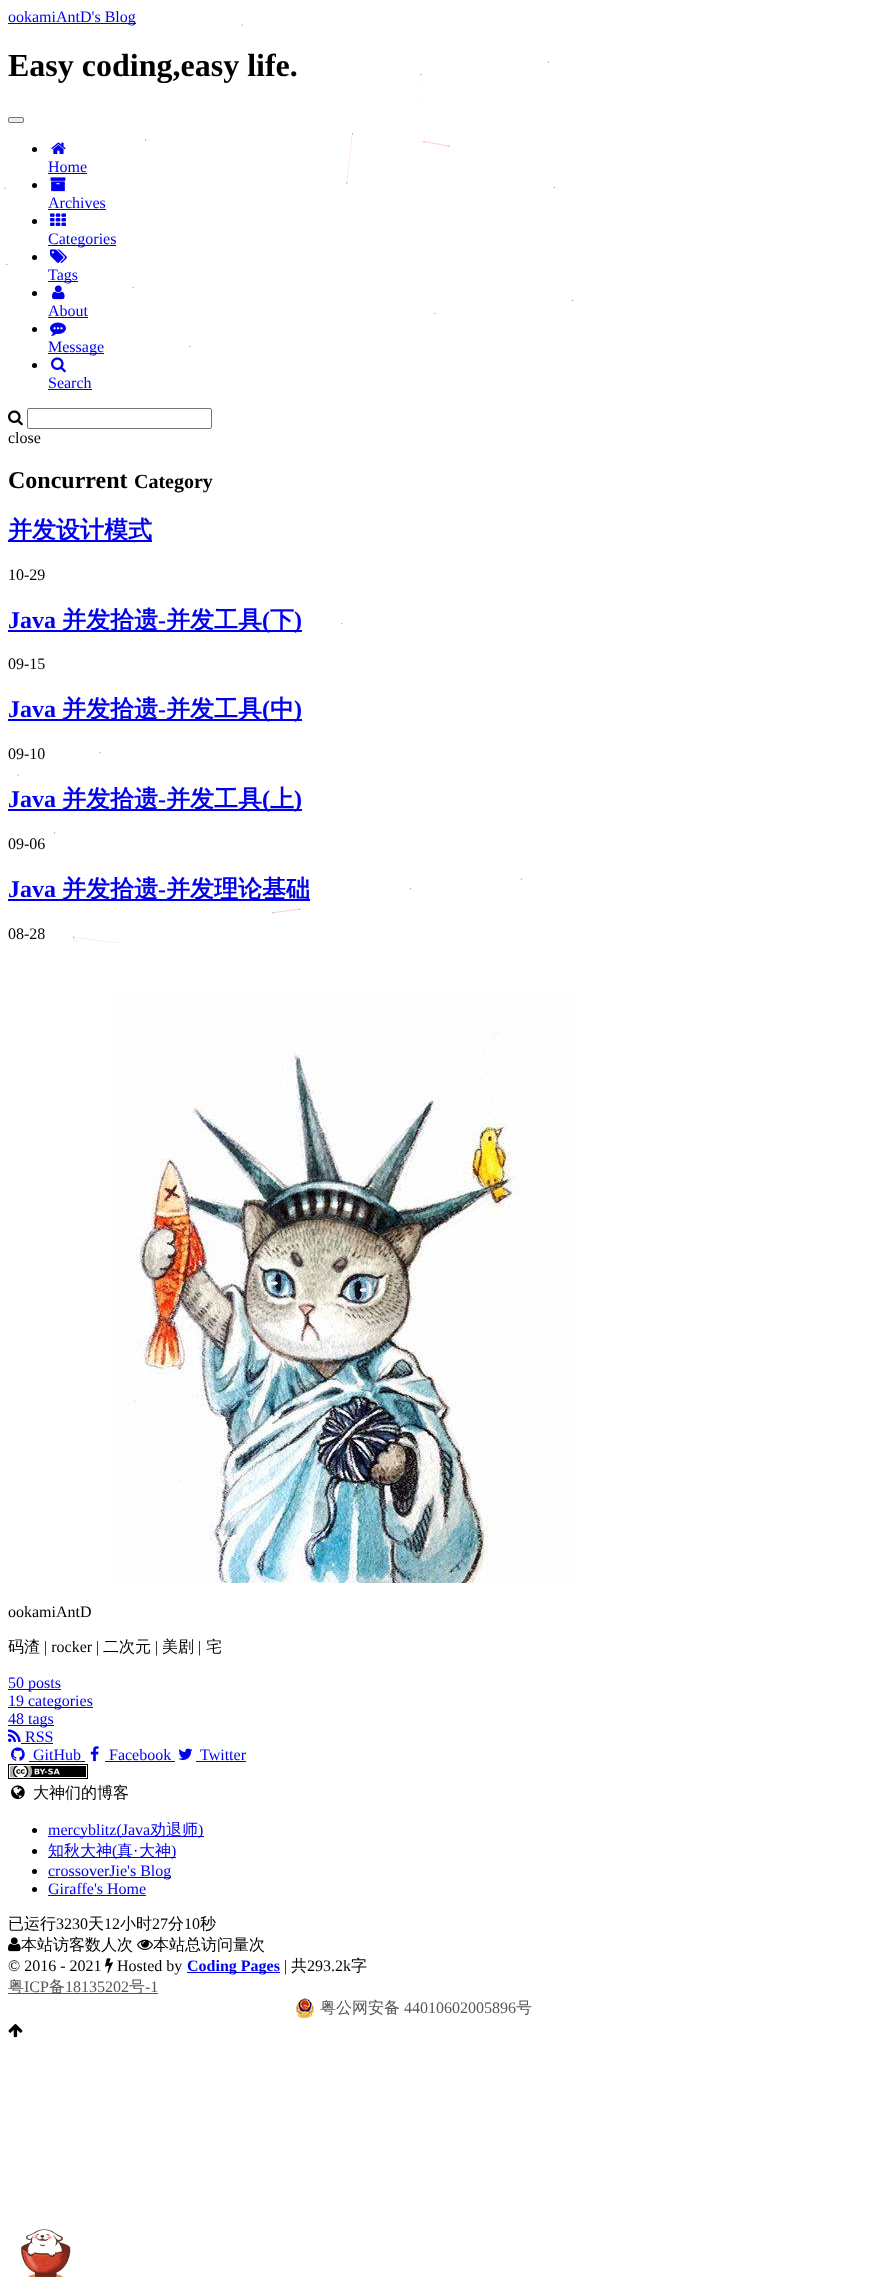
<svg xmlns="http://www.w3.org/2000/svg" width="890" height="2277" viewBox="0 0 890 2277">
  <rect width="100%" height="100%" fill="#fff"/>
  <path d="M8 23h128v1H8z" fill="#00e"/>
  <image x="4" y="24" width="570" height="919" href="img/21.png"/>
  <rect x="8.5" y="117.5" width="15" height="5" rx="1.5" fill="#efefef" stroke="#767676"/>
  <circle cx="34.5" cy="149.5" r="2.5" fill="#000"/>
  <image x="51" y="142" width="15" height="12" href="img/1.png"/>
  <path d="M48 173h39v1H48z" fill="#00e"/>
  <circle cx="34.5" cy="185.5" r="2.5" fill="#000"/>
  <image x="50" y="177" width="16" height="15" href="img/2.png"/>
  <path d="M48 209h58v1H48z" fill="#00e"/>
  <circle cx="34.5" cy="221.5" r="2.5" fill="#000"/>
  <image x="50" y="213" width="16" height="13" href="img/3.png"/>
  <path d="M48 245h68v1H48z" fill="#00e"/>
  <circle cx="34.5" cy="257.5" r="2.5" fill="#000"/>
  <image x="50" y="249" width="17" height="14" href="img/4.png"/>
  <path d="M48 281h30v1H48z" fill="#00e"/>
  <circle cx="34.5" cy="293.5" r="2.5" fill="#000"/>
  <image x="52" y="285" width="13" height="15" href="img/5.png"/>
  <path d="M48 317h40v1H48z" fill="#00e"/>
  <circle cx="34.5" cy="329.5" r="2.5" fill="#000"/>
  <image x="50" y="322" width="16" height="14" href="img/6.png"/>
  <path d="M48 353h56v1H48z" fill="#00e"/>
  <circle cx="34.5" cy="365.5" r="2.5" fill="#000"/>
  <image x="51" y="357" width="15" height="16" href="img/7.png"/>
  <path d="M48 389h44v1H48z" fill="#00e"/>
  <image x="8" y="410" width="15" height="16" href="img/8.png"/>
  <rect x="27.5" y="408.5" width="184" height="20" rx="1.5" fill="none" stroke="#767676"/>
  <path d="M8 540h144v2H8z" fill="#00e"/>
  <path d="M8 630h294v2H8z" fill="#00e"/>
  <path d="M8 719h294v2H8z" fill="#00e"/>
  <path d="M8 809h294v2H8z" fill="#00e"/>
  <path d="M8 899h302v2H8z" fill="#00e"/>
  <image x="76" y="943" width="503" height="640" href="img/9.png"/>
  <path d="M8 1689h53v1H8z" fill="#00e"/>
  <path d="M8 1707h85v1H8z" fill="#00e"/>
  <path d="M8 1725h46v1H8z" fill="#00e"/>
  <image x="8" y="1729" width="13" height="13" href="img/10.png"/>
  <path d="M21 1743h32v1H21z" fill="#00e"/>
  <image x="11" y="1747" width="14" height="14" href="img/11.png"/>
  <path d="M29 1761h56v1H29z" fill="#00e"/>
  <image x="90" y="1746" width="9" height="16" href="img/12.png"/>
  <path d="M105 1761h70v1H105z" fill="#00e"/>
  <image x="178" y="1748" width="15" height="12" href="img/13.png"/>
  <path d="M196 1761h50v1H196z" fill="#00e"/>
  <image x="8" y="1764" width="80" height="15" href="img/14.png"/>
  <image x="11" y="1785" width="14" height="15" href="img/15.png"/>
  <circle cx="34.5" cy="1830.5" r="2.5" fill="#000"/>
  <path d="M48 1836h156v1H48z" fill="#00e"/>
  <circle cx="34.5" cy="1851.5" r="2.5" fill="#000"/>
  <path d="M48 1857h128v1H48z" fill="#00e"/>
  <circle cx="34.5" cy="1871.5" r="2.5" fill="#000"/>
  <path d="M48 1877h123v1H48z" fill="#00e"/>
  <circle cx="34.5" cy="1889.5" r="2.5" fill="#000"/>
  <path d="M48 1895h98v1H48z" fill="#00e"/>
  <image x="8" y="1937" width="13" height="15" href="img/16.png"/>
  <image x="137" y="1939" width="16" height="11" href="img/17.png"/>
  <image x="105" y="1958" width="8" height="16" href="img/18.png"/>
  <path d="M187 1972h93v1H187z" fill="#00e"/>
  <path d="M8 1993h150v1H8z" fill="#555"/>
  <image x="296" y="1998" width="18" height="20" href="img/19.png"/>
  <image x="8" y="2024" width="15" height="14" href="img/20.png"/>
  <image x="21" y="2229" width="50" height="48" href="img/22.png"/>
  <text x="8" y="22" font-family="Liberation Serif" font-size="16" fill="#00e">ookamiAntD's Blog</text>
  <text x="8" y="76" font-family="Liberation Serif" font-size="32" font-weight="bold" fill="#000">Easy coding,easy life.</text>
  <g font-family="Liberation Serif" font-size="16" fill="#00e">
    <text x="48" y="172">Home</text>
    <text x="48" y="208">Archives</text>
    <text x="48" y="244">Categories</text>
    <text x="48" y="280">Tags</text>
    <text x="48" y="316">About</text>
    <text x="48" y="352">Message</text>
    <text x="48" y="388">Search</text>
  </g>
  <text x="8" y="443" font-family="Liberation Serif" font-size="16" fill="#000">close</text>
  <text x="8" y="488" font-family="Liberation Serif" font-size="24" font-weight="bold" fill="#000">Concurrent</text>
  <text x="134" y="488" font-family="Liberation Serif" font-size="20" font-weight="bold" fill="#000">Category</text>
  <text x="8" y="538" font-family="WenQuanYi Zen Hei" font-size="24" font-weight="bold" fill="#00e">并发设计模式</text>
  <text x="8" y="580" font-family="Liberation Serif" font-size="16" fill="#000">10-29</text>
  <text x="8" y="628" font-family="Liberation Serif" font-size="24" font-weight="bold" fill="#00e">Java</text>
  <text x="62" y="628" font-family="WenQuanYi Zen Hei" font-size="24" font-weight="bold" fill="#00e">并发拾遗</text>
  <text x="158" y="628" font-family="Liberation Serif" font-size="24" font-weight="bold" fill="#00e">-</text>
  <text x="166" y="628" font-family="WenQuanYi Zen Hei" font-size="24" font-weight="bold" fill="#00e">并发工具</text>
  <text x="262" y="628" font-family="Liberation Serif" font-size="24" font-weight="bold" fill="#00e">(</text>
  <text x="270" y="628" font-family="WenQuanYi Zen Hei" font-size="24" font-weight="bold" fill="#00e">下</text>
  <text x="294" y="628" font-family="Liberation Serif" font-size="24" font-weight="bold" fill="#00e">)</text>
  <text x="8" y="669" font-family="Liberation Serif" font-size="16" fill="#000">09-15</text>
  <text x="8" y="717" font-family="Liberation Serif" font-size="24" font-weight="bold" fill="#00e">Java</text>
  <text x="62" y="717" font-family="WenQuanYi Zen Hei" font-size="24" font-weight="bold" fill="#00e">并发拾遗</text>
  <text x="158" y="717" font-family="Liberation Serif" font-size="24" font-weight="bold" fill="#00e">-</text>
  <text x="166" y="717" font-family="WenQuanYi Zen Hei" font-size="24" font-weight="bold" fill="#00e">并发工具</text>
  <text x="262" y="717" font-family="Liberation Serif" font-size="24" font-weight="bold" fill="#00e">(</text>
  <text x="270" y="717" font-family="WenQuanYi Zen Hei" font-size="24" font-weight="bold" fill="#00e">中</text>
  <text x="294" y="717" font-family="Liberation Serif" font-size="24" font-weight="bold" fill="#00e">)</text>
  <text x="8" y="759" font-family="Liberation Serif" font-size="16" fill="#000">09-10</text>
  <text x="8" y="807" font-family="Liberation Serif" font-size="24" font-weight="bold" fill="#00e">Java</text>
  <text x="62" y="807" font-family="WenQuanYi Zen Hei" font-size="24" font-weight="bold" fill="#00e">并发拾遗</text>
  <text x="158" y="807" font-family="Liberation Serif" font-size="24" font-weight="bold" fill="#00e">-</text>
  <text x="166" y="807" font-family="WenQuanYi Zen Hei" font-size="24" font-weight="bold" fill="#00e">并发工具</text>
  <text x="262" y="807" font-family="Liberation Serif" font-size="24" font-weight="bold" fill="#00e">(</text>
  <text x="270" y="807" font-family="WenQuanYi Zen Hei" font-size="24" font-weight="bold" fill="#00e">上</text>
  <text x="294" y="807" font-family="Liberation Serif" font-size="24" font-weight="bold" fill="#00e">)</text>
  <text x="8" y="849" font-family="Liberation Serif" font-size="16" fill="#000">09-06</text>
  <text x="8" y="897" font-family="Liberation Serif" font-size="24" font-weight="bold" fill="#00e">Java</text>
  <text x="62" y="897" font-family="WenQuanYi Zen Hei" font-size="24" font-weight="bold" fill="#00e">并发拾遗</text>
  <text x="158" y="897" font-family="Liberation Serif" font-size="24" font-weight="bold" fill="#00e">-</text>
  <text x="166" y="897" font-family="WenQuanYi Zen Hei" font-size="24" font-weight="bold" fill="#00e">并发理论基础</text>
  <g font-family="Liberation Serif" font-size="16" fill="#000">
    <text x="8" y="939">08-28</text>
    <text x="8" y="1617">ookamiAntD</text>
  </g>
  <text x="8" y="1652" font-family="WenQuanYi Zen Hei" font-size="16" font-weight="500" fill="#000">码渣</text>
  <text x="44" y="1652" font-family="Liberation Serif" font-size="16" fill="#000">| rocker |</text>
  <text x="103" y="1652" font-family="WenQuanYi Zen Hei" font-size="16" font-weight="500" fill="#000">二次元</text>
  <text x="155" y="1652" font-family="Liberation Serif" font-size="16" fill="#000">|</text>
  <text x="162" y="1652" font-family="WenQuanYi Zen Hei" font-size="16" font-weight="500" fill="#000">美剧</text>
  <text x="198" y="1652" font-family="Liberation Serif" font-size="16" fill="#000">|</text>
  <text x="206" y="1652" font-family="WenQuanYi Zen Hei" font-size="16" font-weight="500" fill="#000">宅</text>
  <g font-family="Liberation Serif" font-size="16" fill="#00e">
    <text x="8" y="1688">50 posts</text>
    <text x="8" y="1706">19 categories</text>
    <text x="8" y="1724">48 tags</text>
    <text x="25" y="1742">RSS</text>
    <text x="33" y="1760">GitHub</text>
    <text x="109" y="1760">Facebook</text>
    <text x="200" y="1760">Twitter</text>
  </g>
  <text x="33" y="1798" font-family="WenQuanYi Zen Hei" font-size="16" font-weight="500" fill="#000">大神们的博客</text>
  <text x="48" y="1835" font-family="Liberation Serif" font-size="16" fill="#00e">mercyblitz(Java</text>
  <text x="150" y="1835" font-family="WenQuanYi Zen Hei" font-size="16" font-weight="500" fill="#00e">劝退师</text>
  <text x="198" y="1835" font-family="Liberation Serif" font-size="16" fill="#00e">)</text>
  <text x="48" y="1856" font-family="WenQuanYi Zen Hei" font-size="16" font-weight="500" fill="#00e">知秋大神</text>
  <text x="112" y="1856" font-family="Liberation Serif" font-size="16" fill="#00e">(</text>
  <text x="117" y="1856" font-family="WenQuanYi Zen Hei" font-size="16" font-weight="500" fill="#00e">真</text>
  <text x="133" y="1856" font-family="Liberation Serif" font-size="16" fill="#00e">·</text>
  <text x="139" y="1856" font-family="WenQuanYi Zen Hei" font-size="16" font-weight="500" fill="#00e">大神</text>
  <g font-family="Liberation Serif" font-size="16" fill="#00e">
    <text x="171" y="1856">)</text>
    <text x="48" y="1876">crossoverJie's Blog</text>
    <text x="48" y="1894">Giraffe's Home</text>
  </g>
  <text x="8" y="1929" font-family="WenQuanYi Zen Hei" font-size="16" font-weight="500" fill="#000">已运行</text>
  <text x="56" y="1929" font-family="Liberation Serif" font-size="16" fill="#000">3230</text>
  <text x="88" y="1929" font-family="WenQuanYi Zen Hei" font-size="16" font-weight="500" fill="#000">天</text>
  <text x="104" y="1929" font-family="Liberation Serif" font-size="16" fill="#000">12</text>
  <text x="120" y="1929" font-family="WenQuanYi Zen Hei" font-size="16" font-weight="500" fill="#000">小时</text>
  <text x="152" y="1929" font-family="Liberation Serif" font-size="16" fill="#000">27</text>
  <text x="168" y="1929" font-family="WenQuanYi Zen Hei" font-size="16" font-weight="500" fill="#000">分</text>
  <text x="184" y="1929" font-family="Liberation Serif" font-size="16" fill="#000">10</text>
  <g font-family="WenQuanYi Zen Hei" font-size="16" font-weight="500" fill="#000">
    <text x="200" y="1929">秒</text>
    <text x="21" y="1950">本站访客数人次</text>
    <text x="153" y="1950">本站总访问量次</text>
  </g>
  <g font-family="Liberation Serif" font-size="16" fill="#000">
    <text x="8" y="1971">© 2016 - 2021</text>
    <text x="117" y="1971">Hosted by</text>
  </g>
  <text x="187" y="1971" font-family="Liberation Serif" font-size="16" font-weight="bold" fill="#00e">Coding Pages</text>
  <text x="284" y="1971" font-family="Liberation Serif" font-size="16" fill="#000">|</text>
  <text x="291" y="1971" font-family="WenQuanYi Zen Hei" font-size="16" font-weight="500" fill="#000">共</text>
  <text x="307" y="1971" font-family="Liberation Serif" font-size="16" fill="#000">293.2k</text>
  <text x="351" y="1971" font-family="WenQuanYi Zen Hei" font-size="16" font-weight="500" fill="#000">字</text>
  <text x="8" y="1992" font-family="WenQuanYi Zen Hei" font-size="16" font-weight="500" fill="#555">粤</text>
  <text x="24" y="1992" font-family="Liberation Serif" font-size="16" fill="#555">ICP</text>
  <text x="49" y="1992" font-family="WenQuanYi Zen Hei" font-size="16" font-weight="500" fill="#555">备</text>
  <text x="65" y="1992" font-family="Liberation Serif" font-size="16" fill="#555">18135202</text>
  <text x="129" y="1992" font-family="WenQuanYi Zen Hei" font-size="16" font-weight="500" fill="#555">号</text>
  <text x="145" y="1992" font-family="Liberation Serif" font-size="16" fill="#555">-1</text>
  <text x="320" y="2013" font-family="WenQuanYi Zen Hei" font-size="16" font-weight="500" fill="#555">粤公网安备</text>
  <text x="404" y="2013" font-family="Liberation Serif" font-size="16" fill="#555">44010602005896</text>
  <text x="516" y="2013" font-family="WenQuanYi Zen Hei" font-size="16" font-weight="500" fill="#555">号</text>
</svg>
